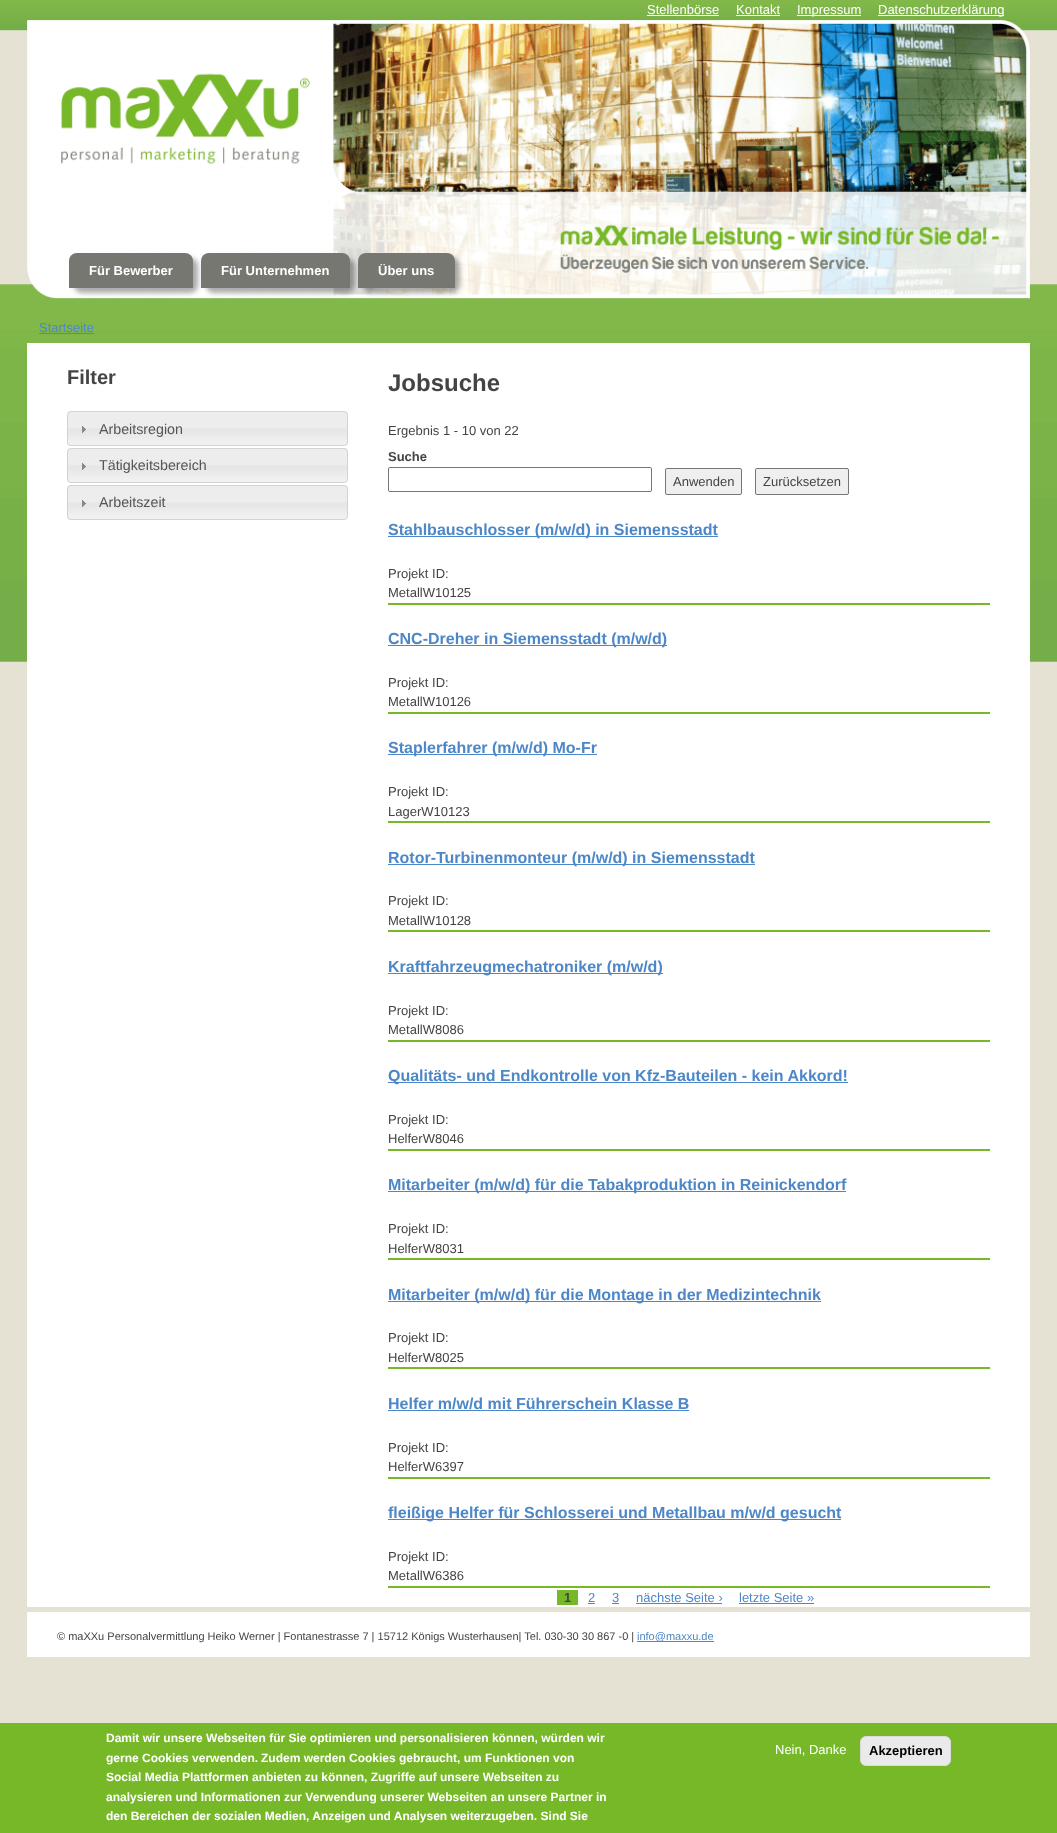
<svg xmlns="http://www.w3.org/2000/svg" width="1057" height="1833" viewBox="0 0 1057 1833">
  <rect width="100%" height="100%" fill="#e5e2d4"/>
  <image x="0" y="0" width="1057" height="662" href="img/1.png"/>
  <path d="M647 15h72v1H647z" fill="#fff"/>
  <path d="M736 15h44v1H736z" fill="#fff"/>
  <path d="M797 15h64v1H797z" fill="#fff"/>
  <path d="M878 15h126v1H878z" fill="#fff"/>
  <image x="27" y="20" width="1003" height="279" href="img/2.png"/>
  <rect x="74" y="258" width="124" height="35" rx="8" fill="#00000054" filter="blur(2.5px)"/>
  <path d="M77 253H185C189.5 253 193 256.5 193 261V288H69V261C69 256.5 72.5 253 77 253Z" fill="#777772"/>
  <rect x="206" y="258" width="149" height="35" rx="8" fill="#00000054" filter="blur(2.5px)"/>
  <path d="M209 253H342C346.5 253 350 256.5 350 261V288H201V261C201 256.5 204.5 253 209 253Z" fill="#777772"/>
  <rect x="363" y="258" width="97" height="35" rx="8" fill="#00000054" filter="blur(2.5px)"/>
  <path d="M366 253H447C451.5 253 455 256.5 455 261V288H358V261C358 256.5 361.5 253 366 253Z" fill="#777772"/>
  <path d="M39 333h55v1H39z" fill="#4d87c7"/>
  <path d="M27 343h1003v1264H27z" fill="#fff"/>
  <image x="67" y="411" width="281" height="35" href="img/3.png"/>
  <rect x="67.5" y="411.5" width="280" height="34" rx="3.5" fill="none" stroke="#d3d3d3"/>
  <image x="82" y="426" width="4" height="7" href="img/4.png"/>
  <image x="67" y="448" width="281" height="35" href="img/3.png"/>
  <rect x="67.5" y="448.5" width="280" height="34" rx="3.5" fill="none" stroke="#d3d3d3"/>
  <image x="82" y="463" width="4" height="7" href="img/4.png"/>
  <image x="67" y="485" width="281" height="35" href="img/3.png"/>
  <rect x="67.5" y="485.5" width="280" height="34" rx="3.5" fill="none" stroke="#d3d3d3"/>
  <image x="82" y="500" width="4" height="7" href="img/4.png"/>
  <rect x="388.5" y="467.5" width="263" height="24" rx="1.5" fill="none" stroke="#767676"/>
  <rect x="665.5" y="468.5" width="76" height="26" rx="1.5" fill="#efefef" stroke="#767676"/>
  <rect x="755.5" y="468.5" width="93" height="26" rx="1.5" fill="#efefef" stroke="#767676"/>
  <path d="M388 603h602v2H388z" fill="#76b828"/>
  <path d="M388 536h330v1H388z" fill="#4d87c7"/>
  <path d="M388 712h602v2H388z" fill="#76b828"/>
  <path d="M388 645h279v1H388z" fill="#4d87c7"/>
  <path d="M388 821h602v2H388z" fill="#76b828"/>
  <path d="M388 754h209v1H388z" fill="#4d87c7"/>
  <path d="M388 930h602v2H388z" fill="#76b828"/>
  <path d="M388 864h367v1H388z" fill="#4d87c7"/>
  <path d="M388 1040h602v2H388z" fill="#76b828"/>
  <path d="M388 973h275v1H388z" fill="#4d87c7"/>
  <path d="M388 1149h602v2H388z" fill="#76b828"/>
  <path d="M388 1082h460v1H388z" fill="#4d87c7"/>
  <path d="M388 1258h602v2H388z" fill="#76b828"/>
  <path d="M388 1191h458v1H388z" fill="#4d87c7"/>
  <path d="M388 1367h602v2H388z" fill="#76b828"/>
  <path d="M388 1301h433v1H388z" fill="#4d87c7"/>
  <path d="M388 1477h602v2H388z" fill="#76b828"/>
  <path d="M388 1410h301v1H388z" fill="#4d87c7"/>
  <path d="M388 1586h602v2H388z" fill="#76b828"/>
  <path d="M388 1519h453v1H388z" fill="#4d87c7"/>
  <path d="M557 1590h21v15H557z" fill="#76b828"/>
  <path d="M588 1603h7v1H588z" fill="#4d87c7"/>
  <path d="M612 1603h7v1H612z" fill="#4d87c7"/>
  <path d="M636 1603h86v1H636z" fill="#4d87c7"/>
  <path d="M739 1603h75v1H739z" fill="#4d87c7"/>
  <path d="M27 1612h1003v45H27z" fill="#fff"/>
  <path d="M637 1641h77v1H637z" fill="#4d87c7"/>
  <path d="M0 1723h1057v110H0z" fill="#76b828"/>
  <rect x="860.5" y="1736.5" width="90" height="29" rx="5.5" fill="#eaeaea" stroke="#dcdcdc"/>
  <g font-family="Liberation Sans" font-size="13" fill="#fff">
    <text x="647" y="14">Stellenbörse</text>
    <text x="736" y="14">Kontakt</text>
    <text x="797" y="14">Impressum</text>
    <text x="878" y="14">Datenschutzerklärung</text>
  </g>
  <g font-family="Liberation Sans" font-size="13" font-weight="bold" fill="#fff">
    <text x="89" y="275">Für Bewerber</text>
    <text x="221" y="275">Für Unternehmen</text>
    <text x="378" y="275">Über uns</text>
  </g>
  <text x="39" y="332" font-family="Liberation Sans" font-size="13" fill="#4d87c7">Startseite</text>
  <text x="67" y="384" font-family="Liberation Sans" font-size="20" font-weight="bold" fill="#444">Filter</text>
  <g font-family="Liberation Sans" font-size="14.25" fill="#555">
    <text x="99" y="434">Arbeitsregion</text>
    <text x="99" y="470">Tätigkeitsbereich</text>
    <text x="99" y="507">Arbeitszeit</text>
  </g>
  <text x="388" y="391" font-family="Liberation Sans" font-size="24" font-weight="bold" fill="#444">Jobsuche</text>
  <text x="388" y="435" font-family="Liberation Sans" font-size="13" fill="#444">Ergebnis 1 - 10 von 22</text>
  <text x="388" y="461" font-family="Liberation Sans" font-size="13" font-weight="bold" fill="#444">Suche</text>
  <g font-family="Liberation Sans" font-size="13" fill="#444">
    <text x="673" y="486">Anwenden</text>
    <text x="763" y="486">Zurücksetzen</text>
  </g>
  <text x="388" y="535" font-family="Liberation Sans" font-size="16" font-weight="bold" fill="#4d87c7">Stahlbauschlosser (m/w/d) in Siemensstadt</text>
  <g font-family="Liberation Sans" font-size="13" fill="#444">
    <text x="388" y="578">Projekt ID:</text>
    <text x="388" y="597">MetallW10125</text>
  </g>
  <text x="388" y="644" font-family="Liberation Sans" font-size="16" font-weight="bold" fill="#4d87c7">CNC-Dreher in Siemensstadt (m/w/d)</text>
  <g font-family="Liberation Sans" font-size="13" fill="#444">
    <text x="388" y="687">Projekt ID:</text>
    <text x="388" y="706">MetallW10126</text>
  </g>
  <text x="388" y="753" font-family="Liberation Sans" font-size="16" font-weight="bold" fill="#4d87c7">Staplerfahrer (m/w/d) Mo-Fr</text>
  <g font-family="Liberation Sans" font-size="13" fill="#444">
    <text x="388" y="796">Projekt ID:</text>
    <text x="388" y="816">LagerW10123</text>
  </g>
  <text x="388" y="863" font-family="Liberation Sans" font-size="16" font-weight="bold" fill="#4d87c7">Rotor-Turbinenmonteur (m/w/d) in Siemensstadt</text>
  <g font-family="Liberation Sans" font-size="13" fill="#444">
    <text x="388" y="905">Projekt ID:</text>
    <text x="388" y="925">MetallW10128</text>
  </g>
  <text x="388" y="972" font-family="Liberation Sans" font-size="16" font-weight="bold" fill="#4d87c7">Kraftfahrzeugmechatroniker (m/w/d)</text>
  <g font-family="Liberation Sans" font-size="13" fill="#444">
    <text x="388" y="1015">Projekt ID:</text>
    <text x="388" y="1034">MetallW8086</text>
  </g>
  <text x="388" y="1081" font-family="Liberation Sans" font-size="16" font-weight="bold" fill="#4d87c7">Qualitäts- und Endkontrolle von Kfz-Bauteilen - kein Akkord!</text>
  <g font-family="Liberation Sans" font-size="13" fill="#444">
    <text x="388" y="1124">Projekt ID:</text>
    <text x="388" y="1143">HelferW8046</text>
  </g>
  <text x="388" y="1190" font-family="Liberation Sans" font-size="16" font-weight="bold" fill="#4d87c7">Mitarbeiter (m/w/d) für die Tabakproduktion in Reinickendorf</text>
  <g font-family="Liberation Sans" font-size="13" fill="#444">
    <text x="388" y="1233">Projekt ID:</text>
    <text x="388" y="1253">HelferW8031</text>
  </g>
  <text x="388" y="1300" font-family="Liberation Sans" font-size="16" font-weight="bold" fill="#4d87c7">Mitarbeiter (m/w/d) für die Montage in der Medizintechnik</text>
  <g font-family="Liberation Sans" font-size="13" fill="#444">
    <text x="388" y="1342">Projekt ID:</text>
    <text x="388" y="1362">HelferW8025</text>
  </g>
  <text x="388" y="1409" font-family="Liberation Sans" font-size="16" font-weight="bold" fill="#4d87c7">Helfer m/w/d mit Führerschein Klasse B</text>
  <g font-family="Liberation Sans" font-size="13" fill="#444">
    <text x="388" y="1452">Projekt ID:</text>
    <text x="388" y="1471">HelferW6397</text>
  </g>
  <text x="388" y="1518" font-family="Liberation Sans" font-size="16" font-weight="bold" fill="#4d87c7">fleißige Helfer für Schlosserei und Metallbau m/w/d gesucht</text>
  <g font-family="Liberation Sans" font-size="13" fill="#444">
    <text x="388" y="1561">Projekt ID:</text>
    <text x="388" y="1580">MetallW6386</text>
  </g>
  <text x="564" y="1602" font-family="Liberation Sans" font-size="13" font-weight="bold" fill="#444">1</text>
  <g font-family="Liberation Sans" font-size="13" fill="#4d87c7">
    <text x="588" y="1602">2</text>
    <text x="612" y="1602">3</text>
    <text x="636" y="1602">nächste Seite ›</text>
    <text x="739" y="1602">letzte Seite »</text>
  </g>
  <text x="57" y="1640" font-family="Liberation Sans" font-size="11" fill="#444">© maXXu Personalvermittlung Heiko Werner | Fontanestrasse 7 | 15712 Königs Wusterhausen| Tel. 030-30 30 867 -0 |</text>
  <text x="637" y="1640" font-family="Liberation Sans" font-size="11" fill="#4d87c7">info@maxxu.de</text>
  <g font-family="Liberation Sans" font-size="12" font-weight="bold" fill="#fff">
    <text x="106" y="1742">Damit wir unsere Webseiten für Sie optimieren und personalisieren können, würden wir</text>
    <text x="106" y="1762">gerne Cookies verwenden.</text>
    <text x="261" y="1762">Zudem werden Cookies gebraucht, um Funktionen von</text>
    <text x="106" y="1781">Social Media Plattformen anbieten zu können, Zugriffe auf unsere Webseiten zu</text>
    <text x="106" y="1801">analysieren und Informationen zur Verwendung unserer Webseiten an unsere Partner in</text>
    <text x="106" y="1820">den Bereichen der sozialen Medien, Anzeigen und Analysen weiterzugeben. Sind Sie</text>
  </g>
  <text x="775" y="1754" font-family="Liberation Sans" font-size="13" fill="#fff">Nein, Danke</text>
  <text x="869" y="1755" font-family="Liberation Sans" font-size="13" font-weight="bold" fill="#000">Akzeptieren</text>
</svg>
